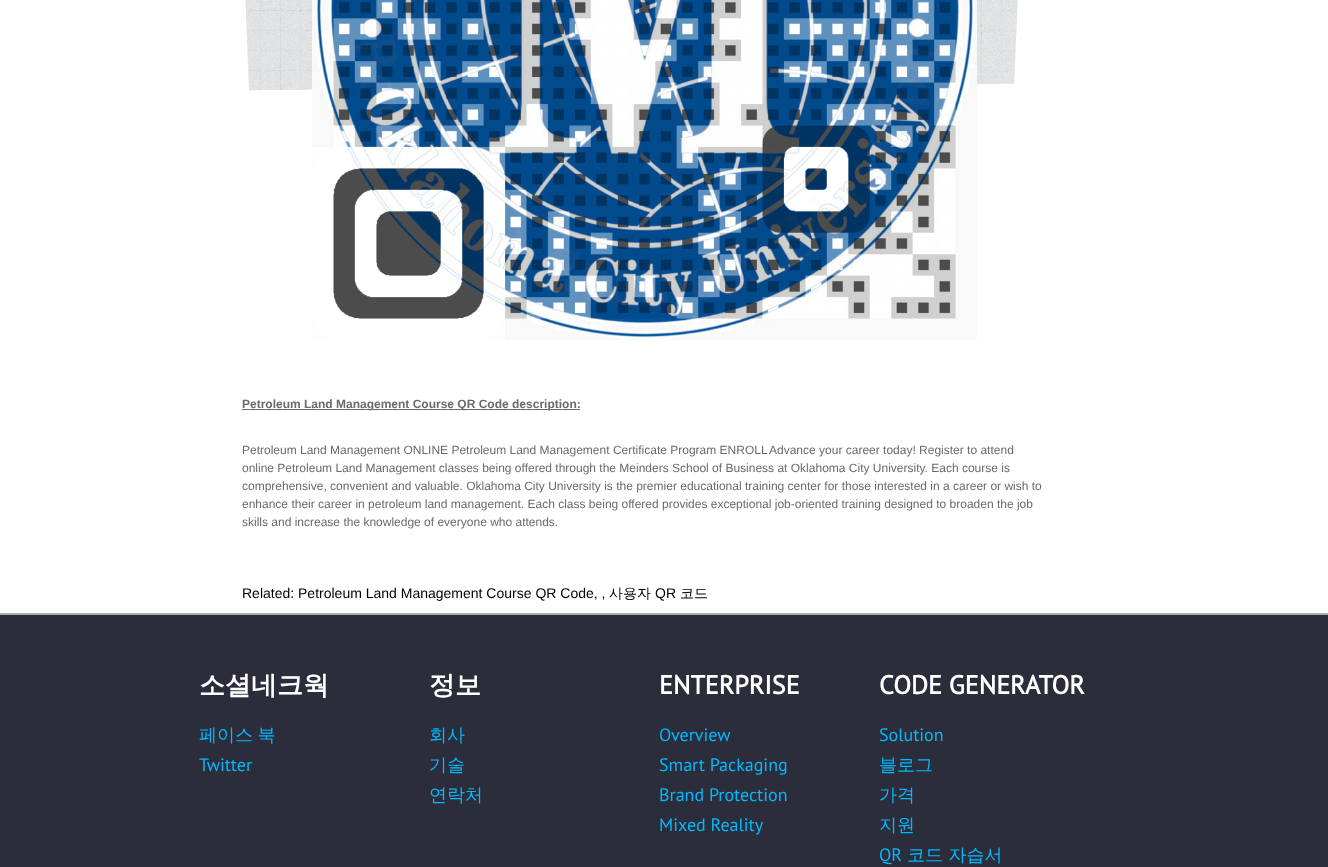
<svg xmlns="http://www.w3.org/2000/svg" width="1328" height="867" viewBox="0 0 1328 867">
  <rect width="100%" height="100%" fill="#fff"/>
  <image x="245" y="0" width="773" height="91" href="img/1.png"/>
  <image x="312" y="0" width="665" height="340" href="img/2.png"/>
  <path d="M242 409h338v1H242z" fill="#6a6a6a"/>
  <path d="M0 615h1328v252H0z" fill="#2c2d3a"/>
  <path d="M0 613h1328v2H0z" fill="#ababb0"/>
  <text x="242" y="408" font-family="Liberation Sans" font-size="12" font-weight="bold" fill="#6a6a6a">Petroleum Land Management Course QR Code description:</text>
  <g font-family="Liberation Sans" font-size="12" fill="#6a6a6a">
    <text x="242" y="454">Petroleum Land Management ONLINE Petroleum Land Management Certificate Program ENROLL</text>
    <text x="769" y="454">Advance your career today! Register to attend</text>
    <text x="242" y="472">online Petroleum Land Management classes being offered through the Meinders School of Business at Oklahoma City University. Each course is</text>
    <text x="242" y="490">comprehensive, convenient and valuable. Oklahoma City University is the premier educational training center for those interested in a career or wish to</text>
    <text x="242" y="508">enhance their career in petroleum land management. Each class being offered provides exceptional job-oriented training designed to broaden the job</text>
    <text x="242" y="526">skills and increase the knowledge of everyone who attends.</text>
  </g>
  <text x="242" y="598" font-family="Liberation Sans" font-size="14" fill="#000">Related: Petroleum Land Management Course QR Code, ,</text>
  <text x="609" y="598" font-family="WenQuanYi Zen Hei" font-size="14" font-weight="500" fill="#000">사용자</text>
  <text x="655" y="598" font-family="Liberation Sans" font-size="14" fill="#000">QR</text>
  <text x="680" y="598" font-family="WenQuanYi Zen Hei" font-size="14" font-weight="500" fill="#000">코드</text>
  <text x="199" y="694" font-family="WenQuanYi Zen Hei" font-size="26" font-weight="bold" fill="#fff">소셜네크웍</text>
  <text x="199" y="741" word-spacing="-1" font-family="WenQuanYi Zen Hei" font-size="18" font-weight="500" fill="#00b9ff">페이스 북</text>
  <text x="199" y="771" font-family="PT Sans" font-size="18" fill="#00b9ff">Twitter</text>
  <text x="429" y="694" font-family="WenQuanYi Zen Hei" font-size="26" font-weight="bold" fill="#fff">정보</text>
  <g font-family="WenQuanYi Zen Hei" font-size="18" font-weight="500" fill="#00b9ff">
    <text x="429" y="741">회사</text>
    <text x="429" y="771">기술</text>
    <text x="429" y="801">연락처</text>
  </g>
  <text x="659" y="694" font-family="PT Sans" font-size="26" font-weight="bold" fill="#fff">ENTERPRISE</text>
  <g font-family="PT Sans" font-size="18" fill="#00b9ff">
    <text x="659" y="741">Overview</text>
    <text x="659" y="771">Smart Packaging</text>
    <text x="659" y="801">Brand Protection</text>
    <text x="659" y="831">Mixed Reality</text>
  </g>
  <text x="879" y="694" font-family="PT Sans" font-size="26" font-weight="bold" fill="#fff">CODE GENERATOR</text>
  <text x="879" y="741" font-family="PT Sans" font-size="18" fill="#00b9ff">Solution</text>
  <g font-family="WenQuanYi Zen Hei" font-size="18" font-weight="500" fill="#00b9ff">
    <text x="879" y="771">블로그</text>
    <text x="879" y="801">가격</text>
    <text x="879" y="831">지원</text>
  </g>
  <text x="879" y="861" font-family="PT Sans" font-size="18" fill="#00b9ff">QR</text>
  <text x="907" y="861" font-family="WenQuanYi Zen Hei" font-size="18" font-weight="500" fill="#00b9ff">코드 자습서</text>
</svg>
